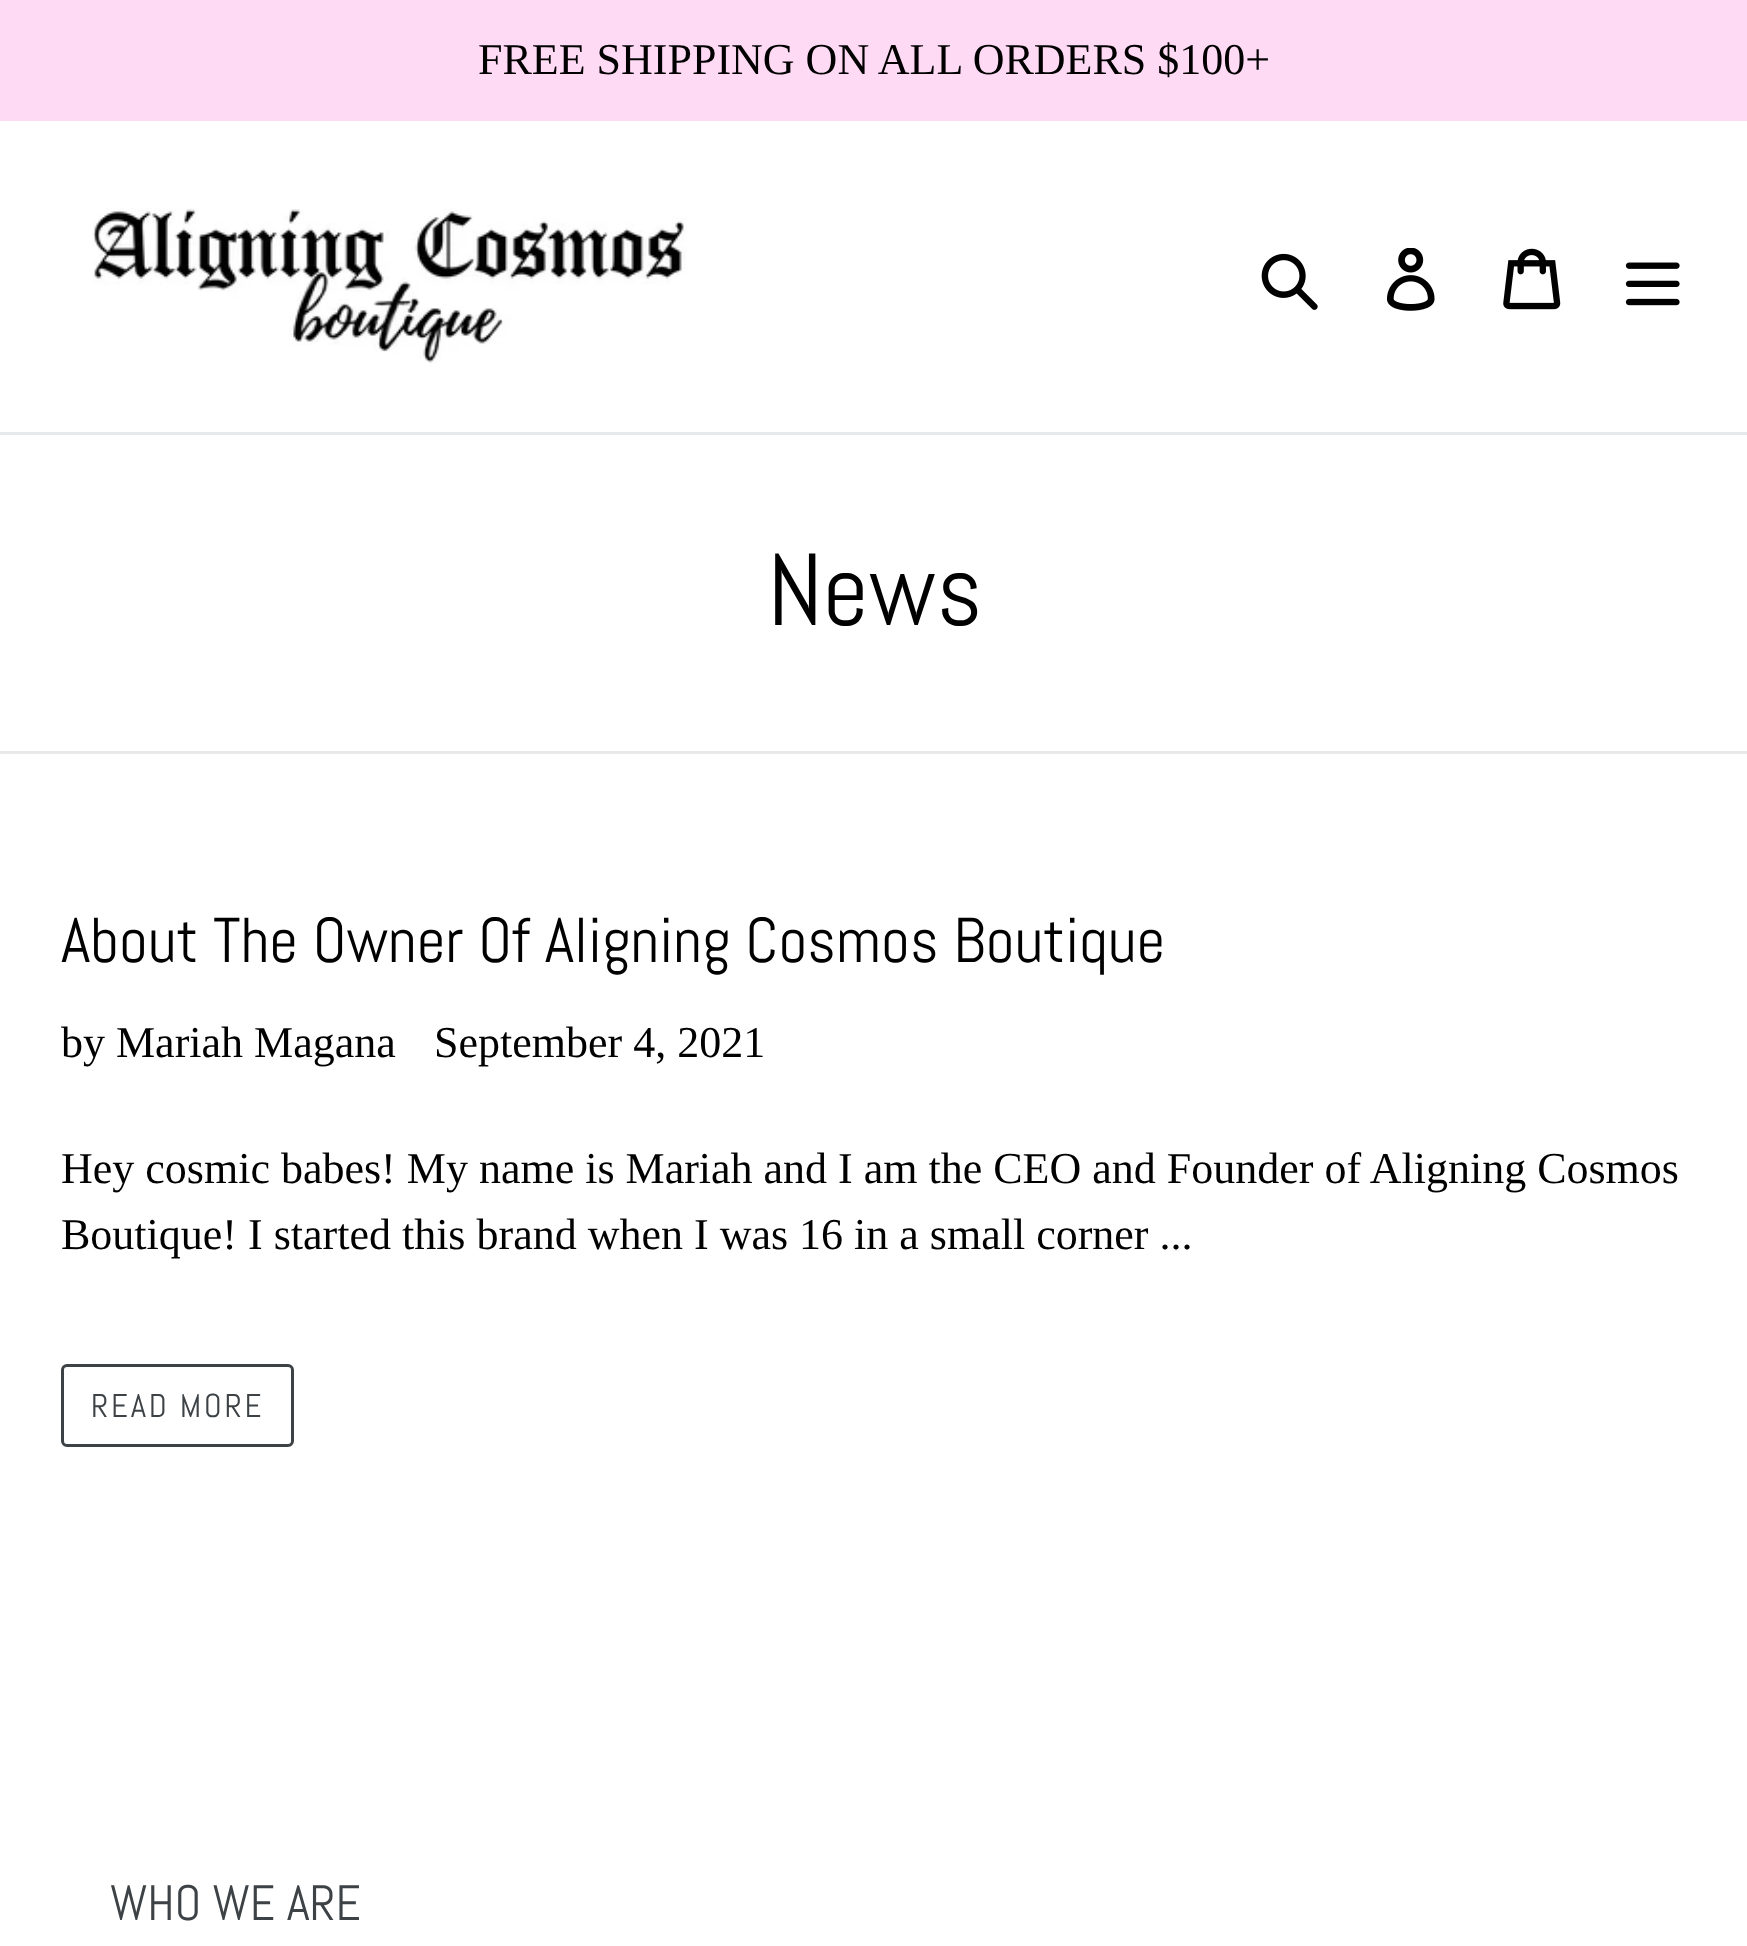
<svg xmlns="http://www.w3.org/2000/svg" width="1747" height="1946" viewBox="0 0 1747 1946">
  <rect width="100%" height="100%" fill="#fff"/>
  <path d="M0 0h1747v121H0z" fill="#ffdaf5"/>
  <path d="M0 432h1747v3H0z" fill="#e8e9eb"/>
  <image x="92" y="208" width="595" height="155" href="img/1.png"/>
  <image x="1261" y="253" width="57" height="57" href="img/2.png"/>
  <image x="1387" y="248" width="48" height="63" href="img/3.png"/>
  <image x="1503" y="248" width="58" height="62" href="img/4.png"/>
  <image x="1625" y="262" width="55" height="44" href="img/5.png"/>
  <path d="M0 751h1747v3H0z" fill="#e8e9eb"/>
  <rect x="62.5" y="1365.5" width="230" height="80" rx="4.5" fill="none" stroke="#3d4246" stroke-width="3"/>
  <text x="478" y="74" font-family="Liberation Serif" font-size="44" fill="#000">FREE SHIPPING ON ALL ORDERS $100+</text>
  <text x="767" y="625" font-family="Abel" font-size="102" fill="#000">News</text>
  <text x="61" y="962" font-family="Abel" font-size="63.25" fill="#000">About The Owner Of Aligning Cosmos Boutique</text>
  <g font-family="Liberation Serif" font-size="44" fill="#000">
    <text x="61" y="1057">by Mariah Magana</text>
    <text x="434" y="1057">September 4, 2021</text>
    <text x="61" y="1183">Hey cosmic babes! My name is Mariah and I am the CEO and Founder of Aligning Cosmos</text>
    <text x="61" y="1249">Boutique! I started this brand when I was 16 in a small corner ...</text>
  </g>
  <text x="91" y="1417" font-family="Abel" font-size="33" letter-spacing="2.75" fill="#3d4246">READ MORE</text>
  <text x="110" y="1920" font-family="Abel" font-size="49.5" fill="#3d4246">WHO WE ARE</text>
</svg>
